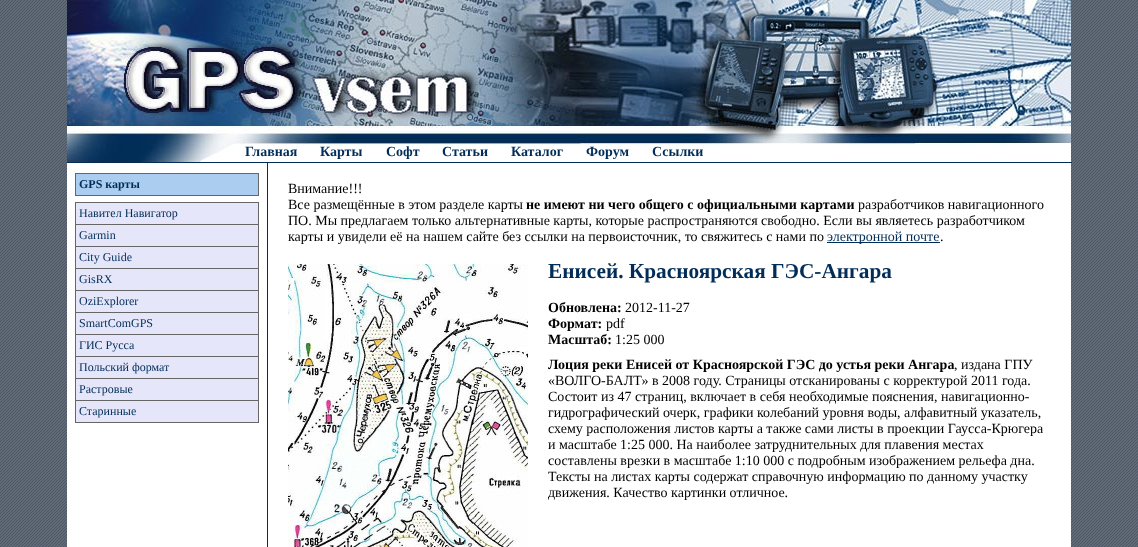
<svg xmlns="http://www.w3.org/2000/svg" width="1138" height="547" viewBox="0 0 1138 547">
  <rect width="100%" height="100%" fill="#fff"/>
  <image x="0" y="0" width="1138" height="547" href="img/1.png"/>
  <path d="M67 163h1004v384H67z" fill="#fff"/>
  <image x="67" y="0" width="1004" height="162" href="img/2.png"/>
  <path d="M267 162h1v385H267z" fill="#012d58"/>
  <path d="M67 162h1005v1H67z" fill="#012d58"/>
  <path d="M308 144h1v1H308z" fill="#fff"/>
  <path d="M374 144h1v1H374z" fill="#fff"/>
  <path d="M430 144h1v1H430z" fill="#fff"/>
  <path d="M499 144h1v1H499z" fill="#fff"/>
  <path d="M574 144h1v1H574z" fill="#fff"/>
  <path d="M640 144h1v1H640z" fill="#fff"/>
  <path d="M715 144h1v1H715z" fill="#fff"/>
  <path d="M76 174h182v21H76z" fill="#abcdef"/>
  <path d="M75 173h184v1H75z" fill="#666"/>
  <path d="M75 195h184v1H75z" fill="#666"/>
  <path d="M258 173h1v23H258z" fill="#666"/>
  <path d="M75 173h1v23H75z" fill="#666"/>
  <path d="M76 203h182v21H76z" fill="#e6e6fa"/>
  <path d="M75 202h184v1H75z" fill="#666"/>
  <path d="M75 224h184v1H75z" fill="#666"/>
  <path d="M75 246h184v1H75z" fill="#666"/>
  <path d="M75 268h184v1H75z" fill="#666"/>
  <path d="M75 290h184v1H75z" fill="#666"/>
  <path d="M75 312h184v1H75z" fill="#666"/>
  <path d="M75 334h184v1H75z" fill="#666"/>
  <path d="M75 356h184v1H75z" fill="#666"/>
  <path d="M75 378h184v1H75z" fill="#666"/>
  <path d="M75 400h184v1H75z" fill="#666"/>
  <path d="M258 400h1v23H258z" fill="#666"/>
  <path d="M258 378h1v23H258z" fill="#666"/>
  <path d="M258 356h1v23H258z" fill="#666"/>
  <path d="M258 334h1v23H258z" fill="#666"/>
  <path d="M258 312h1v23H258z" fill="#666"/>
  <path d="M258 290h1v23H258z" fill="#666"/>
  <path d="M258 268h1v23H258z" fill="#666"/>
  <path d="M258 246h1v23H258z" fill="#666"/>
  <path d="M258 224h1v23H258z" fill="#666"/>
  <path d="M258 202h1v23H258z" fill="#666"/>
  <path d="M75 422h184v1H75z" fill="#666"/>
  <path d="M75 400h1v23H75z" fill="#666"/>
  <path d="M75 378h1v23H75z" fill="#666"/>
  <path d="M75 356h1v23H75z" fill="#666"/>
  <path d="M75 334h1v23H75z" fill="#666"/>
  <path d="M75 312h1v23H75z" fill="#666"/>
  <path d="M75 290h1v23H75z" fill="#666"/>
  <path d="M75 268h1v23H75z" fill="#666"/>
  <path d="M75 246h1v23H75z" fill="#666"/>
  <path d="M75 224h1v23H75z" fill="#666"/>
  <path d="M75 202h1v23H75z" fill="#666"/>
  <path d="M76 225h182v21H76z" fill="#e6e6fa"/>
  <path d="M76 247h182v21H76z" fill="#e6e6fa"/>
  <path d="M76 269h182v21H76z" fill="#e6e6fa"/>
  <path d="M76 291h182v21H76z" fill="#e6e6fa"/>
  <path d="M76 313h182v21H76z" fill="#e6e6fa"/>
  <path d="M76 335h182v21H76z" fill="#e6e6fa"/>
  <path d="M76 357h182v21H76z" fill="#e6e6fa"/>
  <path d="M76 379h182v21H76z" fill="#e6e6fa"/>
  <path d="M76 401h182v21H76z" fill="#e6e6fa"/>
  <path d="M827 242h113v1H827z" fill="#012d58"/>
  <image x="288" y="264" width="240" height="283" href="img/3.png"/>
  <g font-family="Liberation Serif" font-size="14" font-weight="bold" fill="#012d58">
    <text x="245" y="156">Главная</text>
    <text x="320" y="156">Карты</text>
    <text x="386" y="156">Софт</text>
    <text x="442" y="156">Статьи</text>
    <text x="511" y="156">Каталог</text>
    <text x="586" y="156">Форум</text>
    <text x="652" y="156">Ссылки</text>
  </g>
  <text x="79" y="188" font-family="Liberation Serif" font-size="12" font-weight="bold" fill="#012d58">GPS карты</text>
  <g font-family="Liberation Serif" font-size="12" fill="#012d58">
    <text x="79" y="217">Навител Навигатор</text>
    <text x="79" y="239">Garmin</text>
    <text x="79" y="261">City Guide</text>
    <text x="79" y="283">GisRX</text>
    <text x="79" y="305">OziExplorer</text>
    <text x="79" y="327">SmartComGPS</text>
    <text x="79" y="349">ГИС Русса</text>
    <text x="79" y="371">Польский формат</text>
    <text x="79" y="393">Растровые</text>
    <text x="79" y="415">Старинные</text>
  </g>
  <g font-family="Liberation Serif" font-size="14" fill="#000">
    <text x="288" y="193">Внимание!!!</text>
    <text x="288" y="209">Все размещённые в этом разделе карты</text>
  </g>
  <text x="526" y="209" font-family="Liberation Serif" font-size="14" font-weight="bold" fill="#000">не имеют ни чего общего с официальными картами</text>
  <g font-family="Liberation Serif" font-size="14" fill="#000">
    <text x="858" y="209">разработчиков навигационного</text>
    <text x="288" y="225">ПО. Мы предлагаем только альтернативные карты, которые распространяются свободно. Если вы являетесь разработчиком</text>
    <text x="288" y="241">карты и увидели её на нашем сайте без ссылки на первоисточник, то свяжитесь с нами по</text>
  </g>
  <text x="827" y="241" font-family="Liberation Serif" font-size="14" fill="#012d58">электронной почте</text>
  <text x="940" y="241" font-family="Liberation Serif" font-size="14" fill="#000">.</text>
  <text x="548" y="278" font-family="Liberation Serif" font-size="21.3" font-weight="bold" fill="#012d58">Енисей. Красноярская ГЭС-Ангара</text>
  <text x="548" y="312" font-family="Liberation Serif" font-size="14" font-weight="bold" fill="#000">Обновлена:</text>
  <text x="625" y="312" font-family="Liberation Serif" font-size="14" fill="#000">2012-11-27</text>
  <text x="548" y="328" font-family="Liberation Serif" font-size="14" font-weight="bold" fill="#000">Формат:</text>
  <text x="606" y="328" font-family="Liberation Serif" font-size="14" fill="#000">pdf</text>
  <text x="548" y="344" font-family="Liberation Serif" font-size="14" font-weight="bold" fill="#000">Масштаб:</text>
  <text x="615" y="344" font-family="Liberation Serif" font-size="14" fill="#000">1:25 000</text>
  <text x="548" y="369" font-family="Liberation Serif" font-size="14" font-weight="bold" fill="#000">Лоция реки Енисей от Красноярской ГЭС до устья реки Ангара</text>
  <g font-family="Liberation Serif" font-size="14" fill="#000">
    <text x="954" y="369">, издана ГПУ</text>
    <text x="548" y="385">«ВОЛГО-БАЛТ» в 2008 году. Страницы отсканированы с корректурой 2011 года.</text>
    <text x="548" y="401">Состоит из 47 страниц, включает в себя необходимые пояснения, навигационно-</text>
    <text x="548" y="417">гидрографический очерк, графики колебаний уровня воды, алфавитный указатель,</text>
    <text x="548" y="433">схему расположения листов карты а также сами листы в проекции Гаусса-Крюгера</text>
    <text x="548" y="449">и масштабе 1:25 000. На наиболее затруднительных для плавения местах</text>
    <text x="548" y="465">составлены врезки в масштабе 1:10 000 с подробным изображением рельефа дна.</text>
    <text x="548" y="481">Тексты на листах карты содержат справочную информацию по данному участку</text>
    <text x="548" y="497">движения. Качество картинки отличное.</text>
  </g>
</svg>
